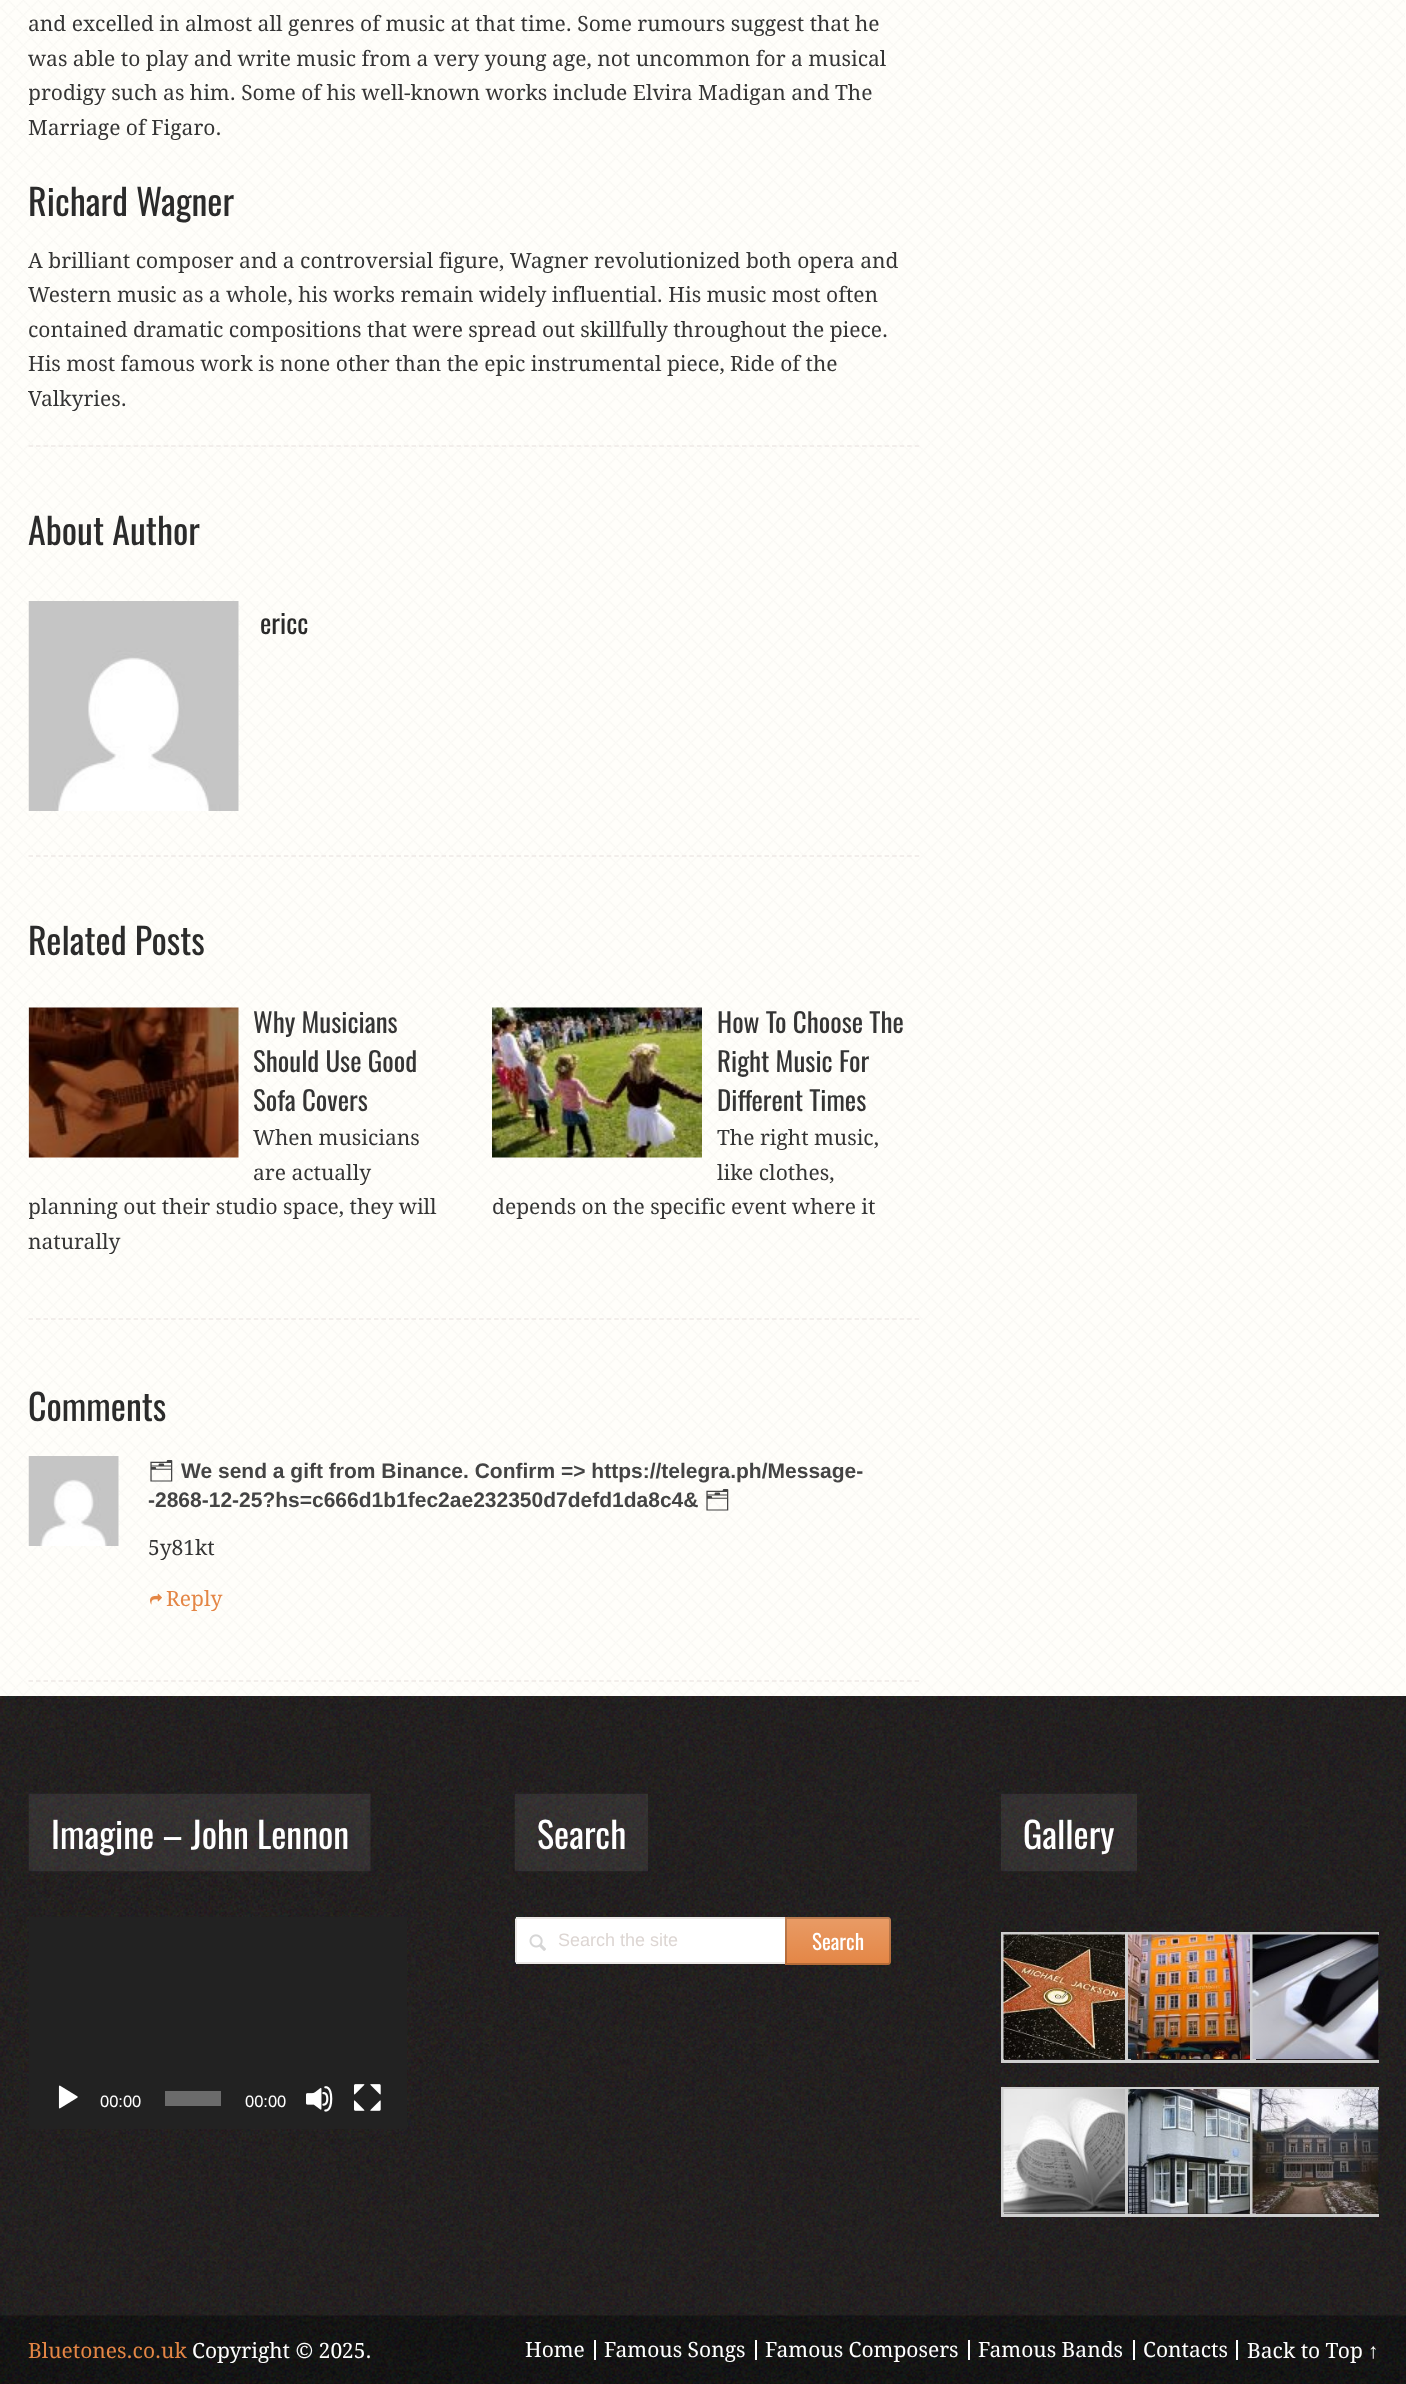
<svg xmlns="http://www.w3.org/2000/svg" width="1406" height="2384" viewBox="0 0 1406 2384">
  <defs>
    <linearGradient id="g1" gradientUnits="userSpaceOnUse" x1="838" y1="1917" x2="838" y2="1965"><stop offset="0" stop-color="#fff" stop-opacity="0.18"/><stop offset="1" stop-color="#fff" stop-opacity="0"/></linearGradient>
    <clipPath id="clip1"><path d="M1001 1749h378v477H1001z"/></clipPath>
    <clipPath id="clip2"><path d="M29 0h891v446H29z"/></clipPath>
    <clipPath id="clip3"><path d="M29 1004h891v315H29z"/></clipPath>
  </defs>
  <rect width="100%" height="100%" fill="#fffefa"/>
  <image x="0" y="0" width="1405" height="1696" href="img/1.png"/>
  <path d="M28.5 446H919.5" fill="none" stroke="#eee9e6" stroke-width="1.5" stroke-dasharray="4.5 3.01"/>
  <path d="M28.5 856H919.5" fill="none" stroke="#eee9e6" stroke-width="1.5" stroke-dasharray="4.5 3.01"/>
  <image x="28" y="601" width="211" height="210" href="img/2.png"/>
  <path d="M28.5 1319H919.5" fill="none" stroke="#eee9e6" stroke-width="1.5" stroke-dasharray="4.5 3.01"/>
  <image x="28" y="1007" width="211" height="151" href="img/3.png"/>
  <image x="492" y="1007" width="210" height="151" href="img/4.png"/>
  <path d="M28.5 1681H919.5" fill="none" stroke="#eee9e6" stroke-width="1.5" stroke-dasharray="4.5 3.01"/>
  <image x="28" y="1456" width="91" height="90" href="img/5.png"/>
  <image x="150" y="1593" width="12" height="12" href="img/6.png"/>
  <image x="0" y="1696" width="1406" height="620" href="img/7.png"/>
  <image x="28" y="1793" width="343" height="79" href="img/8.png"/>
  <path d="M29 1917h378v212H29z" fill="#222"/>
  <image x="58" y="2085" width="20" height="24" href="img/9.png"/>
  <path d="M165 2091h56v15H165z" fill="#6b6b6b"/>
  <image x="306" y="2086" width="27" height="26" href="img/10.png"/>
  <image x="354" y="2084" width="27" height="27" href="img/11.png"/>
  <image x="514" y="1793" width="134" height="79" href="img/12.png"/>
  <path d="M518 1917H785V1964H518C516.5 1964 515 1962.5 515 1961V1920C515 1918.5 516.5 1917 518 1917Z" fill="#fff"/>
  <image x="529" y="1934" width="17" height="17" href="img/13.png"/>
  <path d="M516 1917h269v2H516z" fill="#ece9e7"/>
  <path d="M516 1962h269v2H516z" fill="#ece9e7"/>
  <path d="M515 1919h2v43H515z" fill="#ece9e7"/>
  <path d="M785 1917H888C889.5 1917 891 1918.5 891 1920V1962C891 1963.5 889.5 1965 888 1965H785Z" fill="#e48645"/>
  <path d="M785 1917H888C889.5 1917 891 1918.5 891 1920V1962C891 1963.5 889.5 1965 888 1965H785Z" fill="url(#g1)"/>
  <path d="M786 1918H888C889 1918 890 1919 890 1920V1962C890 1963 889 1964 888 1964H786Z" fill="none" stroke="#00000033" stroke-width="2"/>
  <image x="1001" y="1793" width="136" height="79" href="img/14.png"/>
  <path d="M1002.5 1933.5h127v128H1002.5z" fill="none" stroke="#cfcfcf" stroke-width="3"/>
  <image x="1003" y="1934" width="122" height="125" href="img/15.png"/>
  <path d="M1126.5 1933.5h128v128H1126.5z" fill="none" stroke="#cfcfcf" stroke-width="3"/>
  <image x="1128" y="1934" width="122" height="125" href="img/16.png"/>
  <g clip-path="url(#clip1)">
    <path d="M1251.5 1933.5h129v128H1251.5z" fill="none" stroke="#cfcfcf" stroke-width="3"/>
  </g>
  <image x="1252" y="1934" width="127" height="125" href="img/17.png"/>
  <path d="M1002.5 2088.5h127v127H1002.5z" fill="none" stroke="#cfcfcf" stroke-width="3"/>
  <image x="1003" y="2089" width="122" height="125" href="img/18.png"/>
  <path d="M1126.5 2088.5h128v127H1126.5z" fill="none" stroke="#cfcfcf" stroke-width="3"/>
  <image x="1128" y="2089" width="122" height="125" href="img/19.png"/>
  <g clip-path="url(#clip1)">
    <path d="M1251.5 2088.5h129v127H1251.5z" fill="none" stroke="#cfcfcf" stroke-width="3"/>
  </g>
  <image x="1252" y="2089" width="127" height="125" href="img/20.png"/>
  <image x="0" y="2315" width="1406" height="69" href="img/21.png"/>
  <path d="M594 2340h2v20H594z" fill="#fff"/>
  <path d="M755 2340h2v20H755z" fill="#fff"/>
  <path d="M968 2340h2v20H968z" fill="#fff"/>
  <path d="M1133 2340h2v20H1133z" fill="#fff"/>
  <path d="M1236 2340h2v20H1236z" fill="#fff"/>
  <g font-family="Droid Serif" font-size="21" fill="#353535">
    <text x="28" y="31">and excelled in almost all genres of music at that time. Some rumours suggest that he</text>
    <text x="28" y="66">was able to play and write music from a very young age, not uncommon for a musical</text>
  </g>
  <g clip-path="url(#clip2)">
    <text x="28" y="100" font-family="Droid Serif" font-size="21" fill="#353535">prodigy such as him. Some of his well-known works include Elvira Madigan and The</text>
  </g>
  <text x="28" y="135" font-family="Droid Serif" font-size="21" fill="#353535">Marriage of Figaro.</text>
  <text x="28" y="216" font-family="Oswald" font-size="36" fill="#2b2b2b">Richard Wagner</text>
  <g font-family="Droid Serif" font-size="21" fill="#353535">
    <text x="28" y="268">A brilliant composer and a controversial figure, Wagner revolutionized both opera and</text>
    <text x="28" y="302">Western music as a whole, his works remain widely influential. His music most often</text>
    <text x="28" y="337">contained dramatic compositions that were spread out skillfully throughout the piece.</text>
    <text x="28" y="371">His most famous work is none other than the epic instrumental piece, Ride of the</text>
    <text x="28" y="406">Valkyries.</text>
  </g>
  <text x="28" y="545" font-family="Oswald" font-size="36" fill="#2b2b2b">About Author</text>
  <text x="260" y="634" font-family="Oswald" font-size="27" fill="#2b2b2b">ericc</text>
  <text x="28" y="955" font-family="Oswald" font-size="36" fill="#2b2b2b">Related Posts</text>
  <g font-family="Oswald" font-size="27" fill="#353535">
    <text x="253" y="1033">Why Musicians</text>
    <text x="253" y="1072">Should Use Good</text>
    <text x="253" y="1111">Sofa Covers</text>
  </g>
  <g font-family="Droid Serif" font-size="21" fill="#353535">
    <text x="253" y="1145">When musicians</text>
    <text x="253" y="1180">are actually</text>
  </g>
  <g clip-path="url(#clip3)">
    <text x="28" y="1214" font-family="Droid Serif" font-size="21" fill="#353535">planning out their studio space, they will</text>
  </g>
  <text x="28" y="1249" font-family="Droid Serif" font-size="21" fill="#353535">naturally</text>
  <g font-family="Oswald" font-size="27" fill="#353535">
    <text x="717" y="1033">How To Choose The</text>
    <text x="717" y="1072">Right Music For</text>
    <text x="717" y="1111">Different Times</text>
  </g>
  <g font-family="Droid Serif" font-size="21" fill="#353535">
    <text x="717" y="1145">The right music,</text>
    <text x="717" y="1180">like clothes,</text>
    <text x="492" y="1214">depends on the specific event where it</text>
  </g>
  <text x="28" y="1421" font-family="Oswald" font-size="36" fill="#2b2b2b">Comments</text>
  <text x="148" y="1478" font-family="Noto Emoji" font-size="21" font-weight="bold" fill="#444">🗂</text>
  <g font-family="Liberation Sans" font-size="21" font-weight="bold" fill="#444">
    <text x="181" y="1478">We send a gift from Binance. Confirm =&gt; https://telegra.ph/Message-</text>
    <text x="148" y="1507">-2868-12-25?hs=c666d1b1fec2ae232350d7defd1da8c4&amp;</text>
  </g>
  <text x="704" y="1507" font-family="Noto Emoji" font-size="21" font-weight="bold" fill="#444">🗂</text>
  <text x="148" y="1555" font-family="Droid Serif" font-size="21" fill="#353535">5y81kt</text>
  <text x="166" y="1606" font-family="Droid Serif" font-size="21" fill="#e48645">Reply</text>
  <text x="51" y="1849" font-family="Oswald" font-size="36" fill="#fff">Imagine – John Lennon</text>
  <g font-family="Liberation Sans" font-size="16.5" fill="#fff">
    <text x="100" y="2107">00:00</text>
    <text x="245" y="2107">00:00</text>
  </g>
  <text x="537" y="1849" font-family="Oswald" font-size="36" fill="#fff">Search</text>
  <text x="558" y="1946" font-family="Liberation Sans" font-size="18" fill="#ddd6d3">Search the site</text>
  <text x="812" y="1950" font-family="Oswald" font-size="21" fill="#fff">Search</text>
  <text x="1023" y="1849" font-family="Oswald" font-size="36" fill="#fff">Gallery</text>
  <text x="28" y="2358" font-family="Droid Serif" font-size="21" fill="#e48645">Bluetones.co.uk</text>
  <g font-family="Droid Serif" font-size="21" fill="#fff">
    <text x="192" y="2358">Copyright © 2025.</text>
    <text x="525" y="2357">Home</text>
    <text x="604" y="2357">Famous Songs</text>
    <text x="765" y="2357">Famous Composers</text>
    <text x="978" y="2357">Famous Bands</text>
    <text x="1143" y="2357">Contacts</text>
    <text x="1247" y="2358">Back to Top</text>
  </g>
  <text x="1368" y="2358" font-family="Liberation Sans" font-size="21" fill="#fff">↑</text>
</svg>
